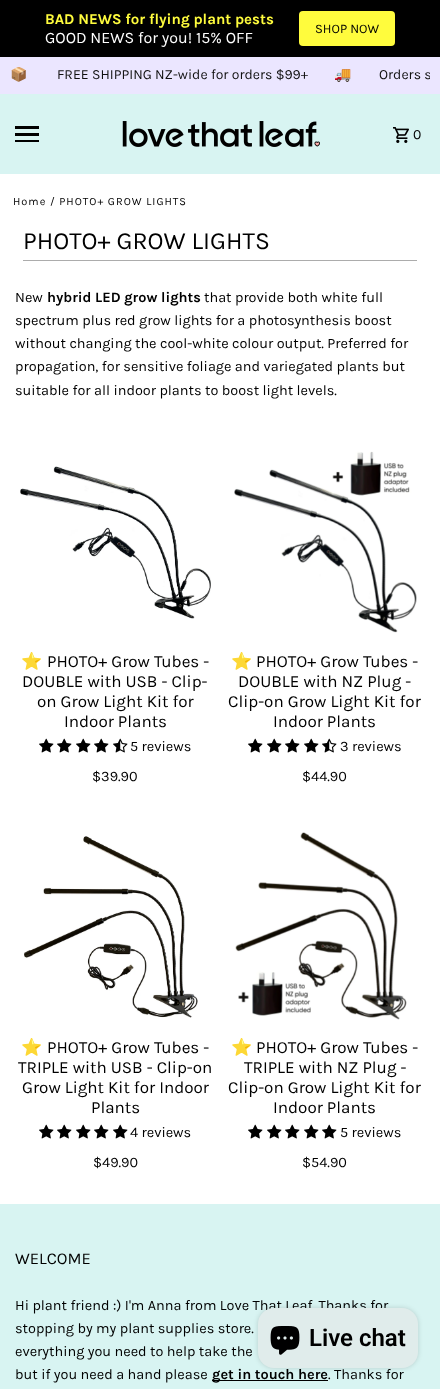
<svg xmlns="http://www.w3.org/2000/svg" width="440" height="1389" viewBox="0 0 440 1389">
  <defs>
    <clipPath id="clip1"><path d="M10 67h420v17H10z"/></clipPath>
  </defs>
  <rect width="100%" height="100%" fill="#fff"/>
  <path d="M0 0h440v57H0z" fill="#000"/>
  <rect x="299" y="11" width="96" height="35" rx="4" fill="#fffc3d"/>
  <path d="M0 57h440v37H0z" fill="#ebe6ff"/>
  <path d="M0 94h440v80H0z" fill="#d8f4f2"/>
  <path d="M15 140h24v2H15z" fill="#000"/>
  <path d="M15 133h24v3H15z" fill="#000"/>
  <path d="M15 126h24v3H15z" fill="#000"/>
  <image x="122" y="121" width="198" height="26" href="img/1.png"/>
  <image x="393" y="127" width="16" height="16" href="img/2.png"/>
  <path d="M23 260h394v1H23z" fill="#acacac"/>
  <image x="20" y="466" width="191" height="153" href="img/3.png"/>
  <image x="39" y="738" width="15" height="15" href="img/4.png"/>
  <image x="57" y="738" width="15" height="15" href="img/4.png"/>
  <image x="76" y="738" width="15" height="15" href="img/4.png"/>
  <image x="94" y="738" width="15" height="15" href="img/4.png"/>
  <image x="113" y="738" width="15" height="15" href="img/5.png"/>
  <image x="234" y="451" width="183" height="182" href="img/6.png"/>
  <image x="248" y="738" width="15" height="15" href="img/4.png"/>
  <image x="267" y="738" width="15" height="15" href="img/4.png"/>
  <image x="285" y="738" width="15" height="15" href="img/4.png"/>
  <image x="304" y="738" width="15" height="15" href="img/4.png"/>
  <image x="322" y="738" width="15" height="15" href="img/5.png"/>
  <image x="24" y="836" width="174" height="182" href="img/7.png"/>
  <image x="39" y="1124" width="15" height="15" href="img/4.png"/>
  <image x="57" y="1124" width="15" height="15" href="img/4.png"/>
  <image x="76" y="1124" width="15" height="15" href="img/4.png"/>
  <image x="94" y="1124" width="15" height="15" href="img/4.png"/>
  <image x="113" y="1124" width="15" height="15" href="img/4.png"/>
  <image x="235" y="832" width="172" height="188" href="img/8.png"/>
  <image x="248" y="1124" width="15" height="15" href="img/4.png"/>
  <image x="267" y="1124" width="15" height="15" href="img/4.png"/>
  <image x="285" y="1124" width="15" height="15" href="img/4.png"/>
  <image x="304" y="1124" width="15" height="15" href="img/4.png"/>
  <image x="322" y="1124" width="15" height="15" href="img/4.png"/>
  <path d="M0 1204h440v185H0z" fill="#d8f4f2"/>
  <path d="M212 1380h116v1H212z" fill="#000"/>
  <rect x="258" y="1308" width="160" height="60" rx="16" fill="#00000026" filter="blur(2.5px)"/>
  <text x="45" y="24" font-family="Karla" font-size="15" font-weight="bold" fill="#fffc3d">BAD NEWS for flying plant pests</text>
  <text x="45" y="43" font-family="Karla" font-size="16" fill="#fff">GOOD NEWS for you! 15% OFF</text>
  <text x="315" y="33" font-family="Karla" font-size="13" fill="#000">SHOP NOW</text>
  <g clip-path="url(#clip1)">
    <text x="10" y="79" font-family="Noto Color Emoji" font-size="14" fill="#101010">📦</text>
  </g>
  <text x="57" y="79" font-family="Karla" font-size="14" fill="#101010">FREE SHIPPING NZ-wide for orders $99+</text>
  <g clip-path="url(#clip1)">
    <text x="334" y="79" font-family="Noto Color Emoji" font-size="14" fill="#101010">🚚</text>
    <text x="379" y="79" font-family="Karla" font-size="14" fill="#101010">Orders s</text>
  </g>
  <text x="413" y="139" font-family="Karla" font-size="14" letter-spacing="1" fill="#000">0</text>
  <text x="13" y="205" font-family="Karla" font-size="11" letter-spacing="1" fill="#000">Home / PHOTO+ GROW LIGHTS</text>
  <text x="23" y="249" font-family="Karla" font-size="24.75" fill="#000">PHOTO+ GROW LIGHTS</text>
  <text x="15" y="302" font-family="Karla" font-size="14.45" fill="#000">New</text>
  <text x="47" y="302" font-family="Karla" font-size="14.45" font-weight="bold" fill="#000">hybrid LED grow lights</text>
  <g font-family="Karla" font-size="14.45" fill="#000">
    <text x="204" y="302">that provide both white full</text>
    <text x="15" y="325">spectrum plus red grow lights for a photosynthesis boost</text>
    <text x="15" y="348">without changing the cool-white colour output. Preferred for</text>
    <text x="15" y="371">propagation, for sensitive foliage and variegated plants but</text>
    <text x="15" y="395">suitable for all indoor plants to boost light levels.</text>
  </g>
  <text x="21" y="667" font-family="Noto Color Emoji" font-size="17" fill="#000">⭐</text>
  <g font-family="Karla" font-size="17" fill="#000">
    <text x="47" y="667">PHOTO+ Grow Tubes -</text>
    <text x="22" y="687">DOUBLE with USB - Clip-</text>
    <text x="37" y="707">on Grow Light Kit for</text>
    <text x="64" y="727">Indoor Plants</text>
  </g>
  <g font-family="Karla" font-size="14.45" fill="#000">
    <text x="130" y="751">5 reviews</text>
    <text x="92" y="781">$39.90</text>
  </g>
  <text x="231" y="667" font-family="Noto Color Emoji" font-size="17" fill="#000">⭐</text>
  <g font-family="Karla" font-size="17" fill="#000">
    <text x="256" y="667">PHOTO+ Grow Tubes -</text>
    <text x="238" y="687">DOUBLE with NZ Plug -</text>
    <text x="228" y="707">Clip-on Grow Light Kit for</text>
    <text x="273" y="727">Indoor Plants</text>
  </g>
  <g font-family="Karla" font-size="14.45" fill="#000">
    <text x="340" y="751">3 reviews</text>
    <text x="302" y="781">$44.90</text>
  </g>
  <text x="21" y="1053" font-family="Noto Color Emoji" font-size="17" fill="#000">⭐</text>
  <g font-family="Karla" font-size="17" fill="#000">
    <text x="47" y="1053">PHOTO+ Grow Tubes -</text>
    <text x="18" y="1073">TRIPLE with USB - Clip-on</text>
    <text x="22" y="1093">Grow Light Kit for Indoor</text>
    <text x="91" y="1113">Plants</text>
  </g>
  <g font-family="Karla" font-size="14.45" fill="#000">
    <text x="130" y="1137">4 reviews</text>
    <text x="93" y="1167">$49.90</text>
  </g>
  <text x="231" y="1053" font-family="Noto Color Emoji" font-size="17" fill="#000">⭐</text>
  <g font-family="Karla" font-size="17" fill="#000">
    <text x="256" y="1053">PHOTO+ Grow Tubes -</text>
    <text x="244" y="1073">TRIPLE with NZ Plug -</text>
    <text x="228" y="1093">Clip-on Grow Light Kit for</text>
    <text x="273" y="1113">Indoor Plants</text>
  </g>
  <g font-family="Karla" font-size="14.45" fill="#000">
    <text x="340" y="1137">5 reviews</text>
    <text x="302" y="1167">$54.90</text>
  </g>
  <text x="15" y="1264" font-family="Karla" font-size="16.5" fill="#000">WELCOME</text>
  <g font-family="Karla" font-size="14.45" fill="#000">
    <text x="15" y="1310">Hi plant friend :) I'm Anna from Love That Leaf. Thanks for</text>
    <text x="15" y="1333">stopping by my plant supplies store.</text>
    <text x="15" y="1356">everything you need to help take the</text>
    <text x="15" y="1379">but if you need a hand please</text>
  </g>
  <text x="212" y="1379" font-family="Karla" font-size="14.45" font-weight="bold" fill="#000">get in touch here</text>
  <text x="328" y="1379" font-family="Karla" font-size="14.45" fill="#000">. Thanks for</text>
  <rect x="258" y="1308" width="160" height="60" rx="16" fill="#e0eceb"/>
  <image x="270" y="1326" width="30" height="29" href="img/9.png"/>
  <text x="309" y="1346" font-family="Roboto" font-size="24" font-weight="600" fill="#000">Live chat</text>
</svg>
